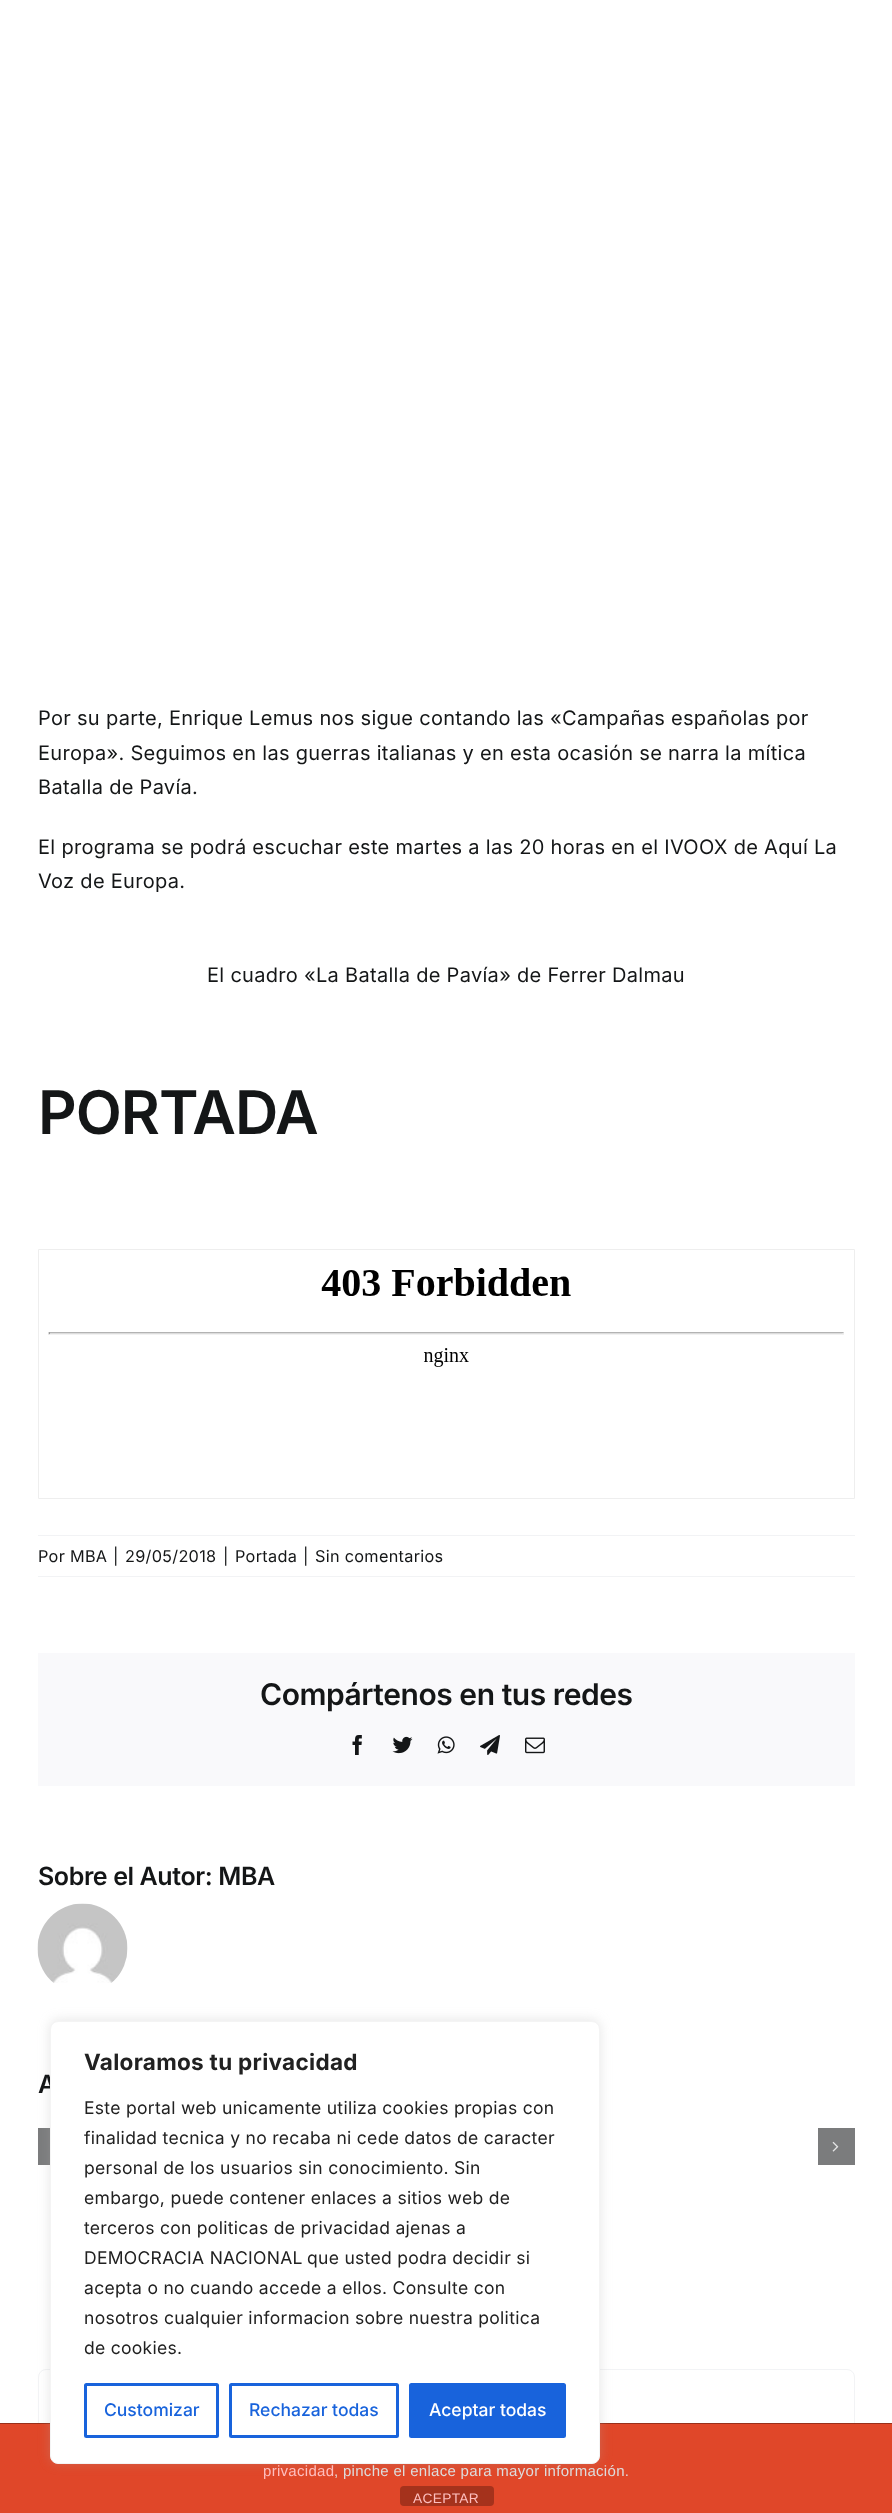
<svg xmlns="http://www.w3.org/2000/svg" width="892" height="2513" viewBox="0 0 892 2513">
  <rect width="100%" height="100%" fill="#fff"/>
  <path d="M38.5 1249.5h816v249H38.5z" fill="none" stroke="#eee"/>
  <image x="48" y="1268" width="796" height="99" href="img/1.png"/>
  <path d="M38 1535h817v1H38z" fill="#f2f3f5"/>
  <path d="M38 1576h817v1H38z" fill="#f2f3f5"/>
  <path d="M38 1653h817v133H38z" fill="#f9f9fb"/>
  <image x="352" y="1735" width="10" height="20" href="img/2.png"/>
  <image x="392" y="1736" width="21" height="18" href="img/3.png"/>
  <image x="437" y="1736" width="18" height="18" href="img/4.png"/>
  <image x="480" y="1735" width="20" height="20" href="img/5.png"/>
  <image x="525" y="1737" width="20" height="17" href="img/6.png"/>
  <image x="37" y="1903" width="91" height="80" href="img/7.png"/>
  <path d="M38 2128h12v37H38z" fill="#7b7c7d"/>
  <path d="M818 2128h37v37H818z" fill="#7b7c7d"/>
  <image x="832" y="2141" width="7" height="11" href="img/8.png"/>
  <rect x="38.5" y="2369.5" width="816" height="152" rx="7.5" fill="none" stroke="#f2f3f5"/>
  <path d="M0 2424h892v89H0z" fill="#e04729"/>
  <path d="M0 2423h892v1H0z" fill="#99301b"/>
  <rect x="50" y="2020" width="550" height="443" rx="8" fill="#acabab4d" filter="blur(6px)"/>
  <rect x="400" y="2486" width="94" height="20" rx="4" fill="#a5321c"/>
  <g font-family="Inter" font-size="20" letter-spacing="0.3" fill="#141617">
    <text x="38" y="725">Por su parte, Enrique Lemus nos sigue contando las «Campañas españolas por</text>
    <text x="38" y="760">Europa». Seguimos en las guerras italianas y en esta ocasión se narra la mítica</text>
    <text x="38" y="794">Batalla de Pavía.</text>
    <text x="38" y="854">El programa se podrá escuchar este martes a las 20 horas en el IVOOX de Aquí La</text>
    <text x="38" y="888">Voz de Europa.</text>
    <text x="207" y="982">El cuadro «La Batalla de Pavía» de Ferrer Dalmau</text>
  </g>
  <text x="38" y="1134" font-family="Inter" font-size="60" font-weight="600" letter-spacing="-1" fill="#141617">PORTADA</text>
  <g font-family="Inter" font-size="16.25" letter-spacing="0.3" fill="#141617">
    <text x="38" y="1562">Por MBA</text>
    <text x="113" y="1562">|</text>
    <text x="125" y="1562">29/05/2018</text>
    <text x="223" y="1562">|</text>
    <text x="235" y="1562">Portada</text>
    <text x="303" y="1562">|</text>
    <text x="315" y="1562">Sin comentarios</text>
  </g>
  <text x="260" y="1705" font-family="Inter" font-size="30" font-weight="600" letter-spacing="-0.45" fill="#141617">Compártenos en tus redes</text>
  <g font-family="Inter" font-size="25" font-weight="600" letter-spacing="-0.4" fill="#141617">
    <text x="38" y="1885">Sobre el Autor: MBA</text>
    <text x="38" y="2093">A</text>
  </g>
  <rect x="50.5" y="2021.5" width="549" height="442" rx="7.5" fill="#fff" stroke="#f4f4f4"/>
  <text x="84" y="2070" font-family="Inter" font-size="22.5" font-weight="bold" letter-spacing="0.3" fill="#212121">Valoramos tu privacidad</text>
  <g font-family="Inter" font-size="17.5" letter-spacing="0.3" fill="#212121">
    <text x="84" y="2114">Este portal web unicamente utiliza cookies propias con</text>
    <text x="84" y="2144">finalidad tecnica y no recaba ni cede datos de caracter</text>
    <text x="84" y="2174">personal de los usuarios sin conocimiento. Sin</text>
    <text x="84" y="2204">embargo, puede contener enlaces a sitios web de</text>
    <text x="84" y="2234">terceros con politicas de privacidad ajenas a</text>
    <text x="84" y="2264">DEMOCRACIA NACIONAL</text>
    <text x="307" y="2264">que usted podra decidir si</text>
    <text x="84" y="2294">acepta o no cuando accede a ellos. Consulte con</text>
    <text x="84" y="2324">nosotros cualquier informacion sobre nuestra politica</text>
    <text x="84" y="2354">de cookies.</text>
  </g>
  <rect x="85.5" y="2384.5" width="132" height="52" rx="1" fill="none" stroke="#1863dc" stroke-width="3"/>
  <text x="104" y="2416" font-family="Inter" font-size="17.5" font-weight="500" fill="#1863dc">Customizar</text>
  <rect x="230.5" y="2384.5" width="167" height="52" rx="1" fill="none" stroke="#1863dc" stroke-width="3"/>
  <text x="249" y="2416" font-family="Inter" font-size="17.5" font-weight="500" fill="#1863dc">Rechazar todas</text>
  <rect x="410.5" y="2384.5" width="154" height="52" rx="1" fill="#1863dc" stroke="#1863dc" stroke-width="3"/>
  <text x="429" y="2416" font-family="Inter" font-size="17.5" font-weight="500" fill="#fff">Aceptar todas</text>
  <text x="263" y="2476" font-family="Liberation Sans" font-size="15" letter-spacing="0.3" fill="#febebe">privacidad</text>
  <text x="334" y="2476" font-family="Liberation Sans" font-size="15" letter-spacing="0.3" fill="#ddd">, pinche el enlace para mayor información.</text>
  <text x="413" y="2503" font-family="Liberation Sans" font-size="13.75" letter-spacing="0.3" fill="#febebe">ACEPTAR</text>
</svg>
